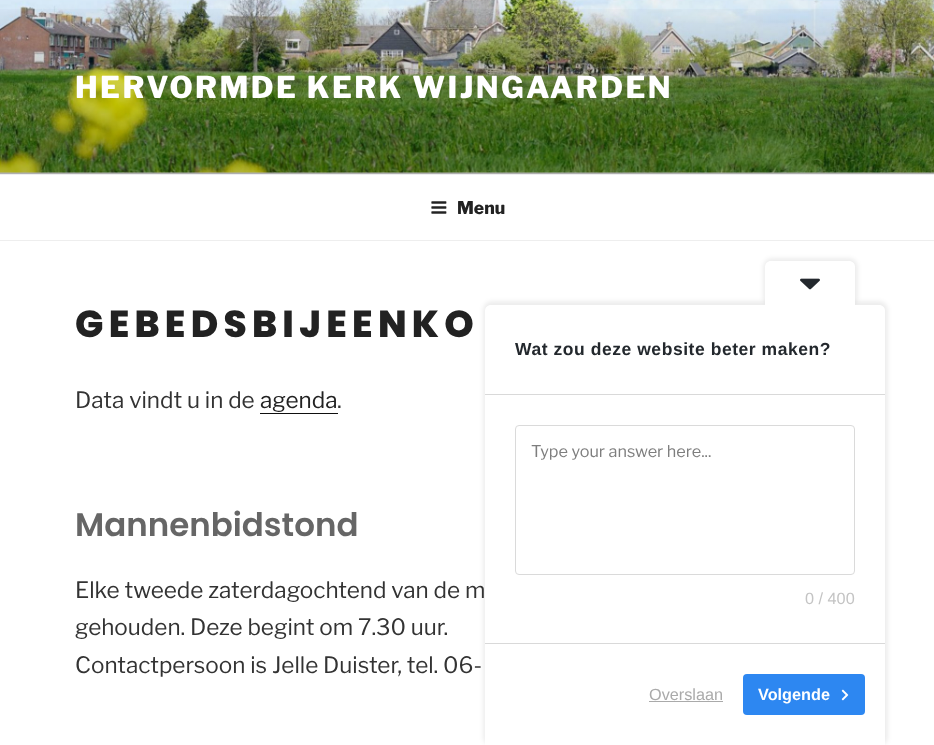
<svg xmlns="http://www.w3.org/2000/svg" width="934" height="745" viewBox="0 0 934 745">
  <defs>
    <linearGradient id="g1" gradientUnits="userSpaceOnUse" x1="468" y1="0" x2="468" y2="174"><stop offset="0" stop-color="#000" stop-opacity="0"/><stop offset="0.75" stop-color="#000" stop-opacity="0.3"/><stop offset="1" stop-color="#000" stop-opacity="0.3"/></linearGradient>
    <clipPath id="clip1"><path d="M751.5 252.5H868.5L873 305H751.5Z"/></clipPath>
  </defs>
  <rect width="100%" height="100%" fill="#fff"/>
  <path d="M0 172h934v2H0z" fill="#fafafa"/>
  <image x="0" y="0" width="934" height="173" href="img/1.png"/>
  <path d="M0 9h934v165H0z" fill="url(#g1)"/>
  <path d="M0 174h934v1H0z" fill="#eee"/>
  <path d="M0 240h934v1H0z" fill="#eee"/>
  <image x="431" y="201" width="16" height="13" href="img/2.png"/>
  <path d="M260 413h78v1H260z" fill="#0f0f0f"/>
  <rect x="483" y="301" width="405" height="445" rx="9" fill="#00000012" filter="blur(2px)"/>
  <path d="M491 305H879C882.5 305 885 307.5 885 311V745H485V311C485 307.5 487.5 305 491 305Z" fill="#fff"/>
  <g clip-path="url(#clip1)">
    <rect x="763" y="258" width="95" height="48" rx="9" fill="#00000012" filter="blur(2px)"/>
  </g>
  <path d="M771 261H849C852.5 261 855 263.5 855 267V305H765V267C765 263.5 767.5 261 771 261Z" fill="#fff"/>
  <image x="800" y="278" width="20" height="12" href="img/3.png"/>
  <path d="M485 394h400v1H485z" fill="#d9d9d9"/>
  <path d="M485 643h400v1H485z" fill="#d9d9d9"/>
  <rect x="515.5" y="425.5" width="339" height="149" rx="3.5" fill="none" stroke="#dadada"/>
  <path d="M649 701h74v1H649z" fill="#aaa"/>
  <rect x="743" y="674" width="122" height="41" rx="4" fill="#2d87f1"/>
  <image x="841" y="689" width="8" height="12" href="img/4.png"/>
  <text x="75" y="98" font-family="Libre Franklin" font-size="30" font-weight="100" letter-spacing="2.4" fill="#fff">HERVORMDE KERK WIJNGAARDEN</text>
  <text x="457" y="214" font-family="Libre Franklin" font-size="17.5" font-weight="100" fill="#222">Menu</text>
  <text x="75" y="337" font-family="Poppins" font-size="37.5" font-weight="800" letter-spacing="5.25" fill="#222">GEBEDSBIJEENKO</text>
  <text x="75" y="408" font-family="'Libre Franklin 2'" font-size="22.5" font-weight="100" fill="#333">Data vindt u in de</text>
  <text x="260" y="408" font-family="'Libre Franklin 2'" font-size="22.5" font-weight="100" fill="#222">agenda</text>
  <text x="337" y="408" font-family="'Libre Franklin 2'" font-size="22.5" font-weight="100" fill="#333">.</text>
  <text x="75" y="536" font-family="Poppins" font-size="32.5" font-weight="600" fill="#666">Mannenbidstond</text>
  <g font-family="'Libre Franklin 2'" font-size="22.5" font-weight="100" fill="#333">
    <text x="75" y="598">Elke tweede zaterdagochtend van de m</text>
    <text x="75" y="635">gehouden. Deze begint om 7.30 uur.</text>
    <text x="75" y="673">Contactpersoon is Jelle Duister, tel. 06-</text>
  </g>
  <text x="515" y="355" font-family="Liberation Sans" font-size="17.5" font-weight="bold" letter-spacing="0.55" fill="#23282d">Wat zou deze website beter maken?</text>
  <text x="531" y="457" font-family="'Libre Franklin 2'" font-size="16.25" font-weight="100" fill="#7e7e7e">Type your answer here...</text>
  <text x="805" y="604" font-family="Liberation Sans" font-size="16.25" fill="#c4c4c4">0 / 400</text>
  <text x="649" y="700" font-family="Liberation Sans" font-size="16.25" fill="#aaa">Overslaan</text>
  <text x="758" y="700" font-family="Liberation Sans" font-size="16.25" font-weight="bold" fill="#fff">Volgende</text>
</svg>
